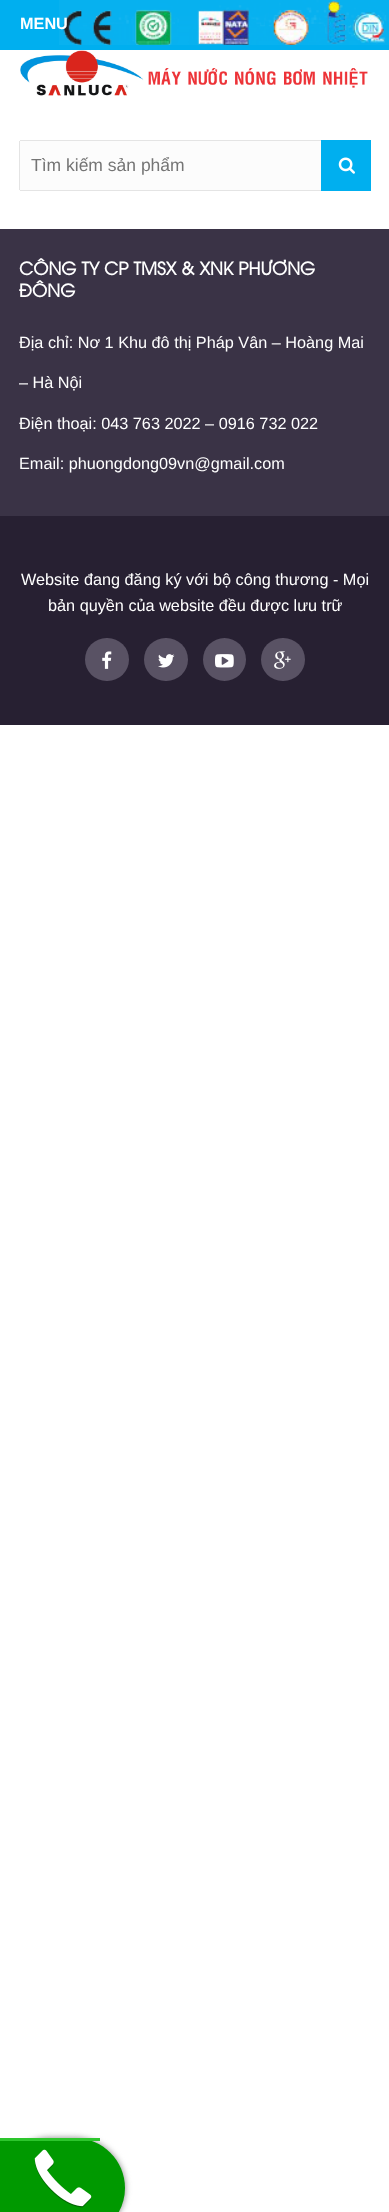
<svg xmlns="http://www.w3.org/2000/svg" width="389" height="2212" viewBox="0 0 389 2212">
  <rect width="100%" height="100%" fill="#fff"/>
  <path d="M0 0h389v50H0z" fill="#00afef"/>
  <image x="59" y="0" width="330" height="45" href="img/1.png"/>
  <image x="20" y="50" width="348" height="46" href="img/2.png"/>
  <rect x="19" y="140" width="345" height="51" rx="2.5" fill="#fcfcfc"/>
  <path d="M20 140h301v1H20z" fill="#e4e4e4"/>
  <path d="M20 190h301v1H20z" fill="#e4e4e4"/>
  <path d="M19 141h1v49H19z" fill="#e4e4e4"/>
  <path d="M321 140h50v51H321z" fill="#00afef"/>
  <image x="338" y="157" width="17" height="17" href="img/3.png"/>
  <path d="M0 229h389v287H0z" fill="#3a3346"/>
  <path d="M0 516h389v209H0z" fill="#272032"/>
  <rect x="85" y="638" width="44" height="43" rx="21.5" fill="#595264"/>
  <image x="102" y="651" width="10" height="18" href="img/4.png"/>
  <rect x="144" y="638" width="44" height="43" rx="21.5" fill="#595264"/>
  <image x="158" y="654" width="17" height="14" href="img/5.png"/>
  <circle cx="224.5" cy="659.5" r="21.5" fill="#595264"/>
  <image x="215" y="654" width="19" height="14" href="img/6.png"/>
  <rect x="261" y="638" width="44" height="43" rx="21.5" fill="#595264"/>
  <image x="274" y="651" width="17" height="18" href="img/7.png"/>
  <rect y="2138" width="125" height="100" rx="50" fill="#888" filter="blur(3px)"/>
  <path d="M0 2138H75C102.5 2138 125 2160.5 125 2188C125 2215.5 102.5 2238 75 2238H0Z" fill="#090"/>
  <image x="34" y="2149" width="58" height="59" href="img/8.png"/>
  <path d="M0 2138h100v3H0z" fill="#2dc62d"/>
  <text x="20" y="29" font-family="Liberation Sans" font-size="16.25" font-weight="bold" fill="#fff">MENU</text>
  <text x="31" y="171" font-family="Liberation Sans" font-size="17.5" fill="#757575">Tìm kiếm sản phẩm</text>
  <g font-family="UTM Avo" font-size="17.5" font-weight="bold" fill="#fff">
    <text x="19" y="275">CÔNG TY CP TMSX &amp; XNK PHƯƠNG</text>
    <text x="19" y="297">ĐÔNG</text>
  </g>
  <g font-family="Liberation Sans" font-size="16.25" fill="#fff">
    <text x="19" y="348">Địa chỉ: Nơ 1 Khu đô thị Pháp Vân – Hoàng Mai</text>
    <text x="19" y="388">– Hà Nội</text>
    <text x="19" y="429">Điện thoại: 043 763 2022 – 0916 732 022</text>
    <text x="19" y="469">Email: phuongdong09vn@gmail.com</text>
    <text x="21" y="585">Website đang đăng ký với bộ công thương - Mọi</text>
    <text x="48" y="611">bản quyền của website đều được lưu trữ</text>
  </g>
</svg>
